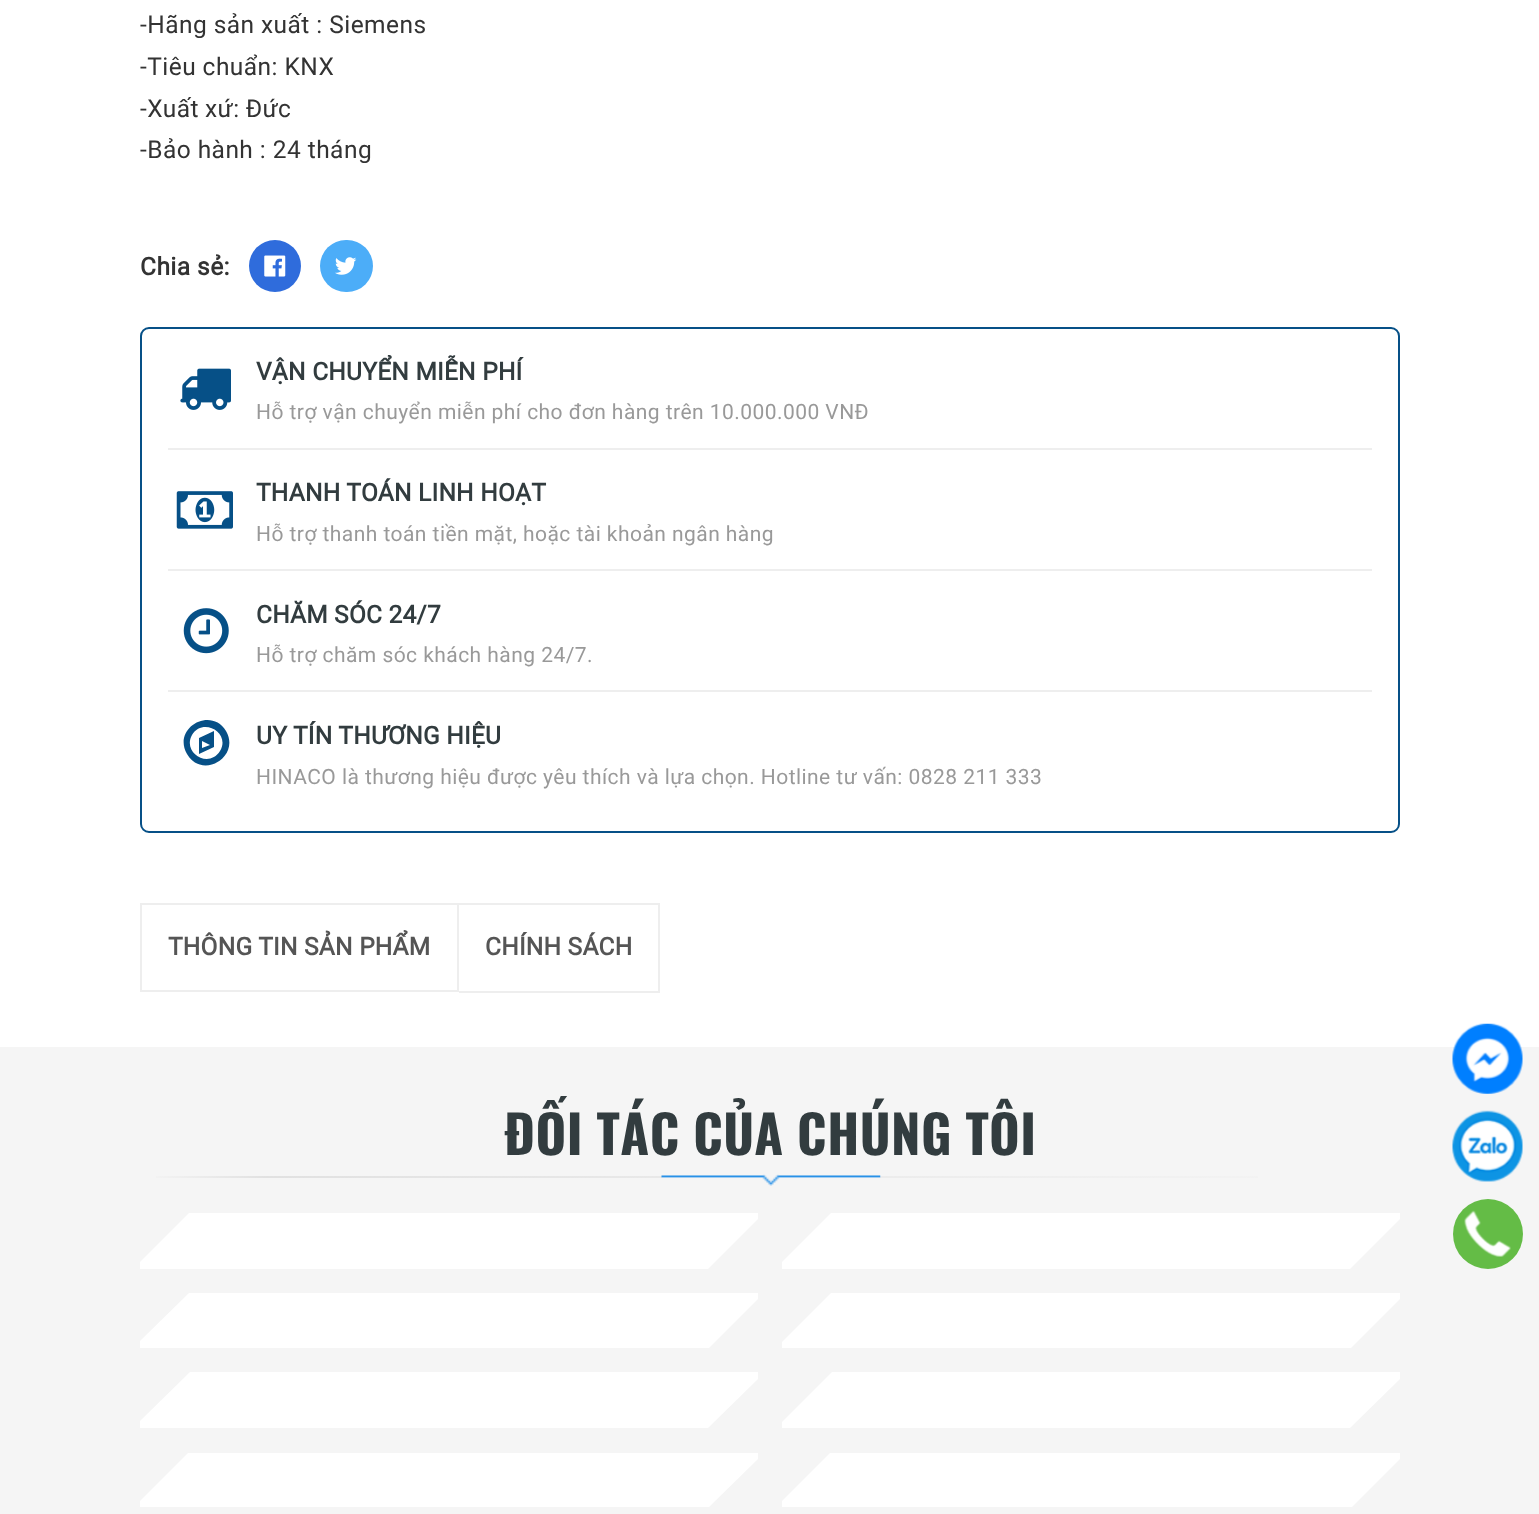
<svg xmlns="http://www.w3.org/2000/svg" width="1539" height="1514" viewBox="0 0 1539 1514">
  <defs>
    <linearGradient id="g1" gradientUnits="userSpaceOnUse" x1="140" y1="1177" x2="1400" y2="1177"><stop offset="0" stop-color="#f5f5f5"/><stop offset="0.1" stop-color="#e1e1e1"/><stop offset="1" stop-color="#f5f5f5"/></linearGradient>
    <clipPath id="clip1"><path d="M140 1213h618v56H140z"/></clipPath>
    <clipPath id="clip2"><path d="M782 1213h618v56H782z"/></clipPath>
    <clipPath id="clip3"><path d="M140 1293h618v55H140z"/></clipPath>
    <clipPath id="clip4"><path d="M782 1293h618v55H782z"/></clipPath>
    <clipPath id="clip5"><path d="M140 1372h618v56H140z"/></clipPath>
    <clipPath id="clip6"><path d="M782 1372h618v56H782z"/></clipPath>
    <clipPath id="clip7"><path d="M140 1453h618v54H140z"/></clipPath>
    <clipPath id="clip8"><path d="M782 1453h618v54H782z"/></clipPath>
  </defs>
  <rect width="100%" height="100%" fill="#fff"/>
  <circle cx="275" cy="266" r="26" fill="#2f6cdc"/>
  <image x="264" y="255" width="22" height="22" href="img/1.png"/>
  <rect x="320" y="240" width="53" height="52" rx="26" fill="#4cadf8"/>
  <image x="335" y="257" width="22" height="18" href="img/2.png"/>
  <rect x="141" y="328" width="1258" height="504" rx="8" fill="none" stroke="#065087" stroke-width="2"/>
  <path d="M168 448h1204v2H168z" fill="#eee"/>
  <image x="180" y="368" width="51" height="42" href="img/3.png"/>
  <path d="M168 569h1204v2H168z" fill="#eee"/>
  <image x="176" y="491" width="57" height="38" href="img/4.png"/>
  <path d="M168 690h1204v2H168z" fill="#eee"/>
  <image x="183" y="608" width="46" height="46" href="img/5.png"/>
  <path d="M202 748L210 745L202 741ZM214 731V747L199 754V738ZM220 751C231 733 203 717 192 735C182 753 209 769 220 751ZM226 731C241 757 202 780 187 754C172 728 211 706 226 731Z" fill="#065087"/>
  <path d="M141 904h317v87H141z" fill="none" stroke="#eee" stroke-width="2"/>
  <path d="M459 903h201v2H459z" fill="#eee"/>
  <path d="M658 903h2v89H658z" fill="#eee"/>
  <path d="M459 991h201v2H459z" fill="#eee"/>
  <path d="M0 1047h1539v467H0z" fill="#f5f5f5"/>
  <path d="M156 1176h1102v2H156z" fill="url(#g1)"/>
  <path d="M662 1176h218v2H662z" fill="#f5f5f5"/>
  <image x="661" y="1174" width="220" height="12" href="img/6.png"/>
  <path d="M140 1213h618v56H140z" fill="#fff"/>
  <g clip-path="url(#clip1)">
    <path d="M191 1211L138 1264V1211Z" fill="#f5f5f5"/>
    <path d="M760 1218H759L707 1270H760Z" fill="#f5f5f5"/>
  </g>
  <path d="M782 1213h618v56H782z" fill="#fff"/>
  <g clip-path="url(#clip2)">
    <path d="M833 1211L781 1263V1211Z" fill="#f5f5f5"/>
    <path d="M1402 1218H1401L1349 1270H1402Z" fill="#f5f5f5"/>
  </g>
  <path d="M140 1293h618v55H140z" fill="#fff"/>
  <g clip-path="url(#clip3)">
    <path d="M190 1292H138V1343Z" fill="#f5f5f5"/>
    <path d="M760 1297V1349H708Z" fill="#f5f5f5"/>
  </g>
  <path d="M782 1293h618v55H782z" fill="#fff"/>
  <g clip-path="url(#clip4)">
    <path d="M781 1292V1343L832 1292Z" fill="#f5f5f5"/>
    <path d="M1402 1297V1349H1350Z" fill="#f5f5f5"/>
  </g>
  <path d="M140 1372h618v56H140z" fill="#fff"/>
  <g clip-path="url(#clip5)">
    <path d="M191 1371L138 1423V1371Z" fill="#f5f5f5"/>
    <path d="M760 1377L707 1429H760Z" fill="#f5f5f5"/>
  </g>
  <path d="M782 1372h618v56H782z" fill="#fff"/>
  <g clip-path="url(#clip6)">
    <path d="M833 1371L781 1423V1371Z" fill="#f5f5f5"/>
    <path d="M1402 1377L1349 1429H1402Z" fill="#f5f5f5"/>
  </g>
  <path d="M140 1453h618v54H140z" fill="#fff"/>
  <g clip-path="url(#clip7)">
    <path d="M190 1451H138V1503Z" fill="#f5f5f5"/>
    <path d="M760 1457V1509H707Z" fill="#f5f5f5"/>
  </g>
  <path d="M782 1453h618v54H782z" fill="#fff"/>
  <g clip-path="url(#clip8)">
    <path d="M781 1451V1502L832 1451Z" fill="#f5f5f5"/>
    <path d="M1402 1457V1509H1350Z" fill="#f5f5f5"/>
  </g>
  <image x="1452" y="1023" width="71" height="71" href="img/7.png"/>
  <image x="1452" y="1110" width="71" height="72" href="img/8.png"/>
  <circle cx="1488" cy="1234" r="35" fill="#64bc46"/>
  <image x="1464" y="1210" width="47" height="47" href="img/9.png"/>
  <g font-family="Roboto" font-size="24.5" letter-spacing="0.45" fill="#333">
    <text x="140" y="33">-Hãng sản xuất : Siemens</text>
    <text x="140" y="75">-Tiêu chuẩn: KNX</text>
    <text x="140" y="117" word-spacing="-0.5">-Xuất xứ: Đức</text>
    <text x="140" y="158">-Bảo hành : 24 tháng</text>
  </g>
  <text x="140" y="275" font-family="Roboto" font-size="24.5" font-weight="bold" letter-spacing="0.45" fill="#333">Chia sẻ:</text>
  <text x="256" y="380" font-family="Roboto" font-size="24.5" font-weight="bold" letter-spacing="0.25" fill="#323c3f">VẬN CHUYỂN MIỄN PHÍ</text>
  <text x="256" y="419" font-family="Roboto" font-size="21" letter-spacing="0.45" fill="#999">Hỗ trợ vận chuyển miễn phí cho đơn hàng trên 10.000.000 VNĐ</text>
  <text x="256" y="501" font-family="Roboto" font-size="24.5" font-weight="bold" letter-spacing="0.25" fill="#323c3f">THANH TOÁN LINH HOẠT</text>
  <text x="256" y="541" font-family="Roboto" font-size="21" letter-spacing="0.45" fill="#999">Hỗ trợ thanh toán tiền mặt, hoặc tài khoản ngân hàng</text>
  <text x="256" y="623" font-family="Roboto" font-size="24.5" font-weight="bold" letter-spacing="0.25" fill="#323c3f">CHĂM SÓC 24/7</text>
  <text x="256" y="662" font-family="Roboto" font-size="21" letter-spacing="0.45" fill="#999">Hỗ trợ chăm sóc khách hàng 24/7.</text>
  <text x="256" y="744" font-family="Roboto" font-size="24.5" font-weight="bold" letter-spacing="0.25" fill="#323c3f">UY TÍN THƯƠNG HIỆU</text>
  <text x="256" y="784" font-family="Roboto" font-size="21" letter-spacing="0.45" fill="#999">HINACO là thương hiệu được yêu thích và lựa chọn. Hotline tư vấn: 0828 211 333</text>
  <g font-family="Roboto" font-size="24.5" font-weight="bold" letter-spacing="0.25" fill="#555">
    <text x="168" y="955">THÔNG TIN SẢN PHẨM</text>
    <text x="485" y="955">CHÍNH SÁCH</text>
  </g>
  <text x="504" y="1155" word-spacing="-0.5" font-family="Oswald" font-size="52.5" font-weight="bold" letter-spacing="0.5" fill="#323c3f">ĐỐI TÁC CỦA CHÚNG TÔI</text>
</svg>
